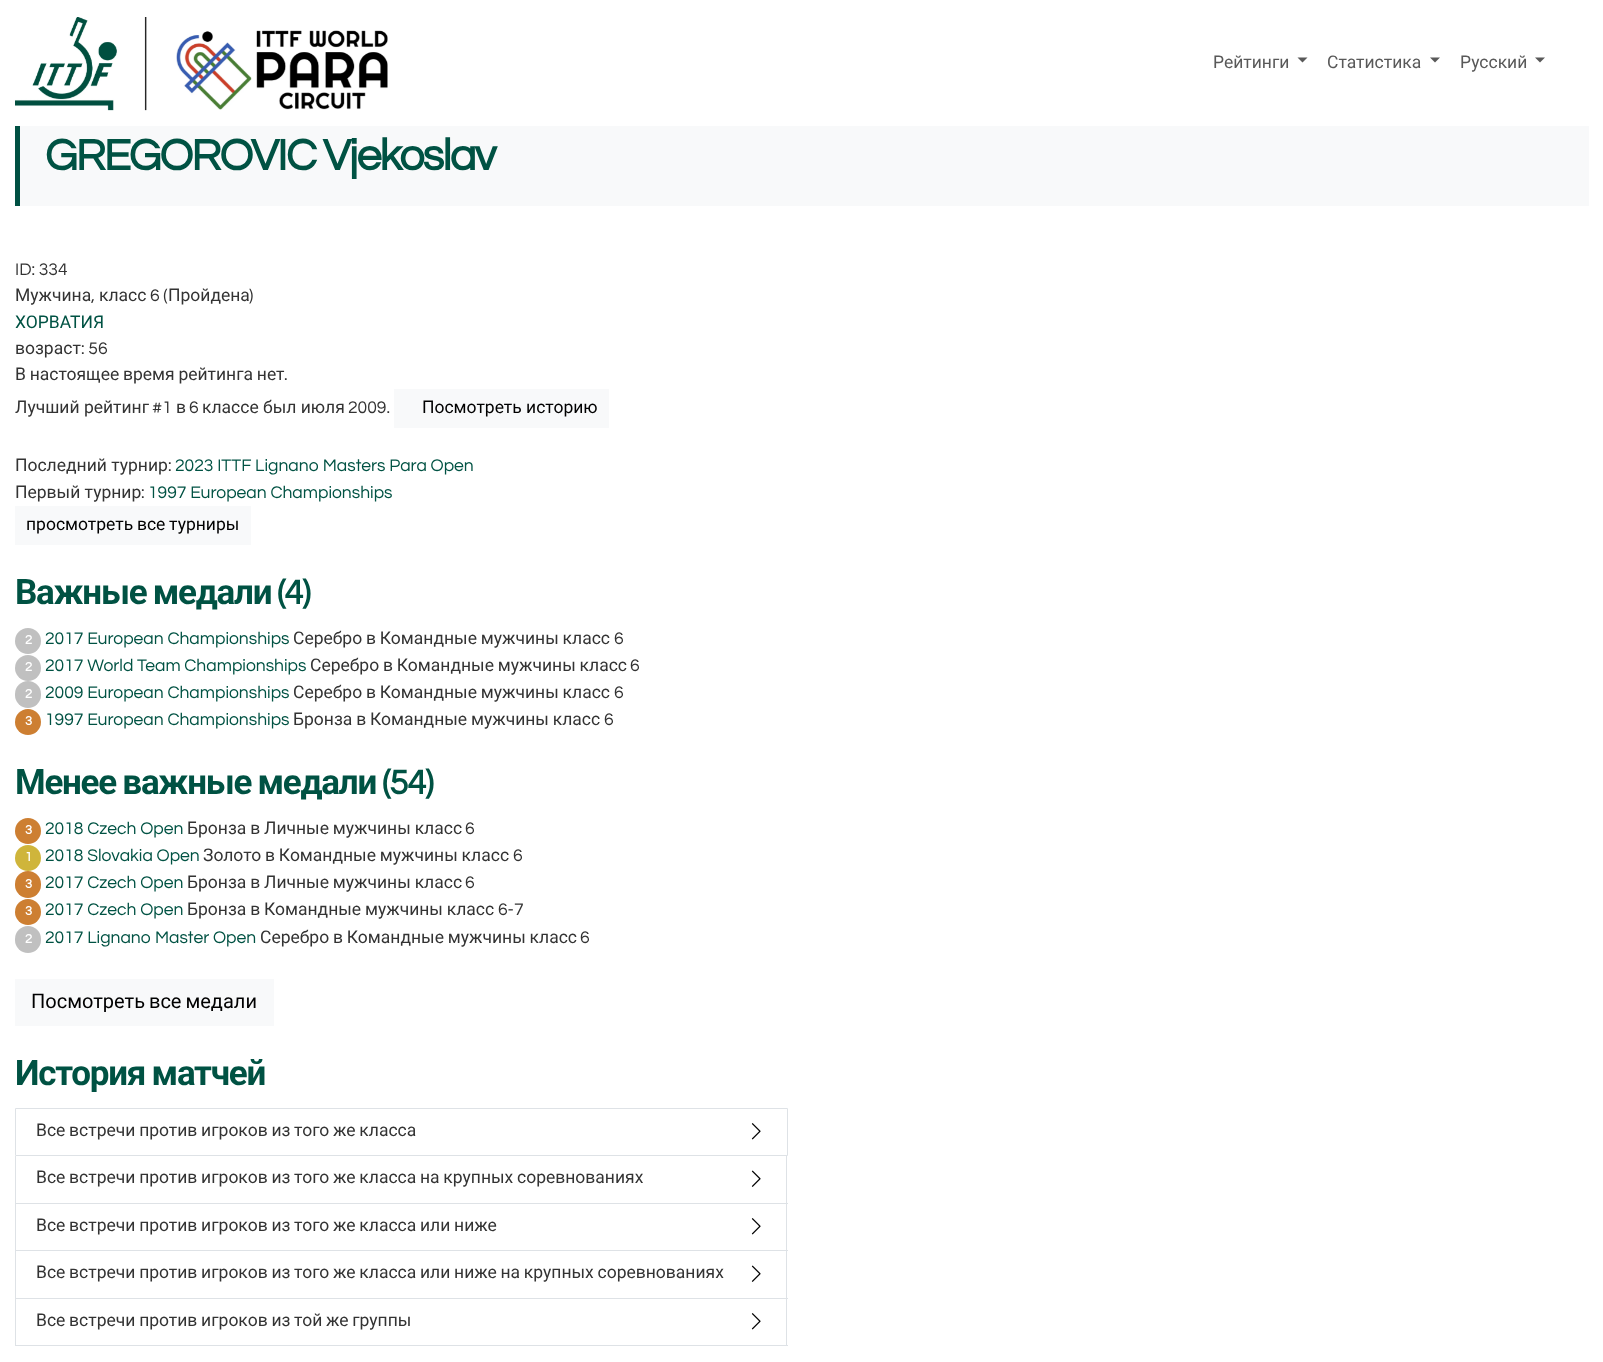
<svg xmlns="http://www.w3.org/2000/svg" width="1603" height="1362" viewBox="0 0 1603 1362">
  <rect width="100%" height="100%" fill="#fff"/>
  <image x="15" y="17" width="373" height="94" href="img/1.png"/>
  <path d="M1297.5 57.5H1307.5L1302.5 62.5Z" fill="#595959"/>
  <path d="M1430 57.5H1440L1435 62.5Z" fill="#595959"/>
  <path d="M1535 57.5H1545L1540 62.5Z" fill="#595959"/>
  <path d="M20 126h1569v80H20z" fill="#f8f9fa"/>
  <path d="M15 126h5v80H15z" fill="#005043"/>
  <path d="M394 389h215v39H394z" fill="#f8f9fa"/>
  <path d="M15 506h236v39H15z" fill="#f8f9fa"/>
  <circle cx="28" cy="641" r="13" fill="#c0c0c0"/>
  <circle cx="28" cy="668" r="13" fill="#c0c0c0"/>
  <rect x="15" y="681" width="26" height="27" rx="13" fill="#c0c0c0"/>
  <circle cx="28" cy="722" r="13" fill="#cd7f32"/>
  <circle cx="28" cy="831" r="13" fill="#cd7f32"/>
  <circle cx="28" cy="858" r="13" fill="#cfb53b"/>
  <rect x="15" y="871" width="26" height="27" rx="13" fill="#cd7f32"/>
  <circle cx="28" cy="912" r="13" fill="#cd7f32"/>
  <rect x="15" y="926" width="26" height="27" rx="13" fill="#c0c0c0"/>
  <path d="M15 979h259v47H15z" fill="#f8f9fa"/>
  <path d="M15.5 1108.5h772v47H15.5z" fill="none" stroke="#dee2e6"/>
  <image x="751" y="1123" width="10" height="17" href="img/2.png"/>
  <path d="M786 1156h1v190H786z" fill="#dee2e6"/>
  <path d="M15 1203h773v1H15z" fill="#dee2e6"/>
  <path d="M15 1156h1v48H15z" fill="#dee2e6"/>
  <image x="751" y="1170" width="10" height="17" href="img/3.png"/>
  <path d="M15 1250h773v1H15z" fill="#dee2e6"/>
  <path d="M15 1204h1v47H15z" fill="#dee2e6"/>
  <image x="751" y="1218" width="10" height="17" href="img/2.png"/>
  <path d="M15 1298h773v1H15z" fill="#dee2e6"/>
  <path d="M15 1251h1v48H15z" fill="#dee2e6"/>
  <image x="751" y="1265" width="10" height="17" href="img/3.png"/>
  <path d="M15 1345h773v1H15z" fill="#dee2e6"/>
  <path d="M15 1299h1v47H15z" fill="#dee2e6"/>
  <image x="751" y="1313" width="10" height="17" href="img/2.png"/>
  <g font-family="Roboto" font-size="17.5" fill="#595959">
    <text x="1213" y="68">Рейтинги</text>
    <text x="1327" y="68">Статистика</text>
    <text x="1460" y="68">Русский</text>
  </g>
  <text x="45" y="170" font-family="Questrial" font-size="45" font-weight="bold" letter-spacing="-1.9" fill="#005243">GREGOROVIC Vjekoslav</text>
  <text x="15" y="275" font-family="Questrial" font-size="17.5" fill="#333">ID: 334</text>
  <text x="15" y="301" font-family="Roboto" font-size="17.5" fill="#333">Мужчина</text>
  <text x="91" y="301" font-family="Questrial" font-size="17.5" fill="#333">,</text>
  <text x="99" y="301" font-family="Roboto" font-size="17.5" fill="#333">класс</text>
  <text x="150" y="301" font-family="Questrial" font-size="17.5" fill="#333">6 (</text>
  <text x="168" y="301" font-family="Roboto" font-size="17.5" fill="#333">Пройдена</text>
  <text x="249" y="301" font-family="Questrial" font-size="17.5" fill="#333">)</text>
  <text x="15" y="328" font-family="Roboto" font-size="17.5" fill="#005243">ХОРВАТИЯ</text>
  <text x="15" y="354" font-family="Roboto" font-size="17.5" fill="#333">возраст</text>
  <text x="81" y="354" font-family="Questrial" font-size="17.5" fill="#333">: 56</text>
  <text x="15" y="380" word-spacing="-0.6" font-family="Roboto" font-size="17.5" fill="#333">В настоящее время рейтинга нет</text>
  <text x="284" y="380" font-family="Questrial" font-size="17.5" fill="#333">.</text>
  <text x="15" y="413" font-family="Roboto" font-size="17.5" fill="#333">Лучший рейтинг</text>
  <text x="152" y="413" font-family="Questrial" font-size="17.5" fill="#333">#1</text>
  <text x="176" y="413" font-family="Roboto" font-size="17.5" fill="#333">в</text>
  <text x="189" y="413" font-family="Questrial" font-size="17.5" fill="#333">6</text>
  <text x="202" y="413" font-family="Roboto" font-size="17.5" fill="#333">классе был июля</text>
  <text x="348" y="413" font-family="Questrial" font-size="17.5" fill="#333">2009.</text>
  <text x="422" y="413" font-family="Roboto" font-size="17.5" fill="#000">Посмотреть историю</text>
  <text x="15" y="471" font-family="Roboto" font-size="17.5" fill="#333">Последний турнир</text>
  <text x="168" y="471" font-family="Questrial" font-size="17.5" fill="#333">:</text>
  <text x="175" y="471" font-family="Questrial" font-size="17.5" fill="#005243">2023 ITTF Lignano Masters Para Open</text>
  <text x="15" y="498" font-family="Roboto" font-size="17.5" fill="#333">Первый турнир</text>
  <text x="141" y="498" font-family="Questrial" font-size="17.5" fill="#333">:</text>
  <text x="148" y="498" font-family="Questrial" font-size="17.5" fill="#005243">1997 European Championships</text>
  <text x="26" y="530" word-spacing="-0.6" font-family="Roboto" font-size="17.5" fill="#000">просмотреть все турниры</text>
  <text x="15" y="604" word-spacing="-1" font-family="Roboto" font-size="35" font-weight="bold" letter-spacing="-1.25" fill="#005243">Важные медали</text>
  <text x="277" y="604" font-family="Questrial" font-size="35" font-weight="bold" letter-spacing="-1.25" fill="#005243">(4)</text>
  <text x="25" y="644" font-family="Questrial" font-size="13" font-weight="bold" fill="#fff">2</text>
  <text x="45" y="644" font-family="Questrial" font-size="17.5" fill="#005243">2017 European Championships</text>
  <text x="293" y="644" word-spacing="-0.5" font-family="Roboto" font-size="17.5" fill="#333">Серебро в Командные мужчины класс</text>
  <text x="614" y="644" font-family="Questrial" font-size="17.5" fill="#333">6</text>
  <text x="25" y="671" font-family="Questrial" font-size="13" font-weight="bold" fill="#fff">2</text>
  <text x="45" y="671" font-family="Questrial" font-size="17.5" fill="#005243">2017 World Team Championships</text>
  <text x="310" y="671" word-spacing="-0.5" font-family="Roboto" font-size="17.5" fill="#333">Серебро в Командные мужчины класс</text>
  <text x="630" y="671" font-family="Questrial" font-size="17.5" fill="#333">6</text>
  <text x="25" y="698" font-family="Questrial" font-size="13" font-weight="bold" fill="#fff">2</text>
  <text x="45" y="698" font-family="Questrial" font-size="17.5" fill="#005243">2009 European Championships</text>
  <text x="293" y="698" word-spacing="-0.5" font-family="Roboto" font-size="17.5" fill="#333">Серебро в Командные мужчины класс</text>
  <text x="614" y="698" font-family="Questrial" font-size="17.5" fill="#333">6</text>
  <text x="25" y="725" font-family="Questrial" font-size="13" font-weight="bold" fill="#fff">3</text>
  <text x="45" y="725" font-family="Questrial" font-size="17.5" fill="#005243">1997 European Championships</text>
  <text x="293" y="725" word-spacing="-0.5" font-family="Roboto" font-size="17.5" fill="#333">Бронза в Командные мужчины класс</text>
  <text x="604" y="725" font-family="Questrial" font-size="17.5" fill="#333">6</text>
  <text x="15" y="794" word-spacing="-1" font-family="Roboto" font-size="35" font-weight="bold" letter-spacing="-1.25" fill="#005243">Менее важные медали</text>
  <text x="382" y="794" font-family="Questrial" font-size="35" font-weight="bold" letter-spacing="-1.25" fill="#005243">(54)</text>
  <text x="25" y="834" font-family="Questrial" font-size="13" font-weight="bold" fill="#fff">3</text>
  <text x="45" y="834" font-family="Questrial" font-size="17.5" fill="#005243">2018 Czech Open</text>
  <text x="187" y="834" word-spacing="-0.5" font-family="Roboto" font-size="17.5" fill="#333">Бронза в Личные мужчины класс</text>
  <text x="465" y="834" font-family="Questrial" font-size="17.5" fill="#333">6</text>
  <text x="25" y="861" font-family="Questrial" font-size="13" font-weight="bold" fill="#fff">1</text>
  <text x="45" y="861" font-family="Questrial" font-size="17.5" fill="#005243">2018 Slovakia Open</text>
  <text x="203" y="861" word-spacing="-0.5" font-family="Roboto" font-size="17.5" fill="#333">Золото в Командные мужчины класс</text>
  <text x="513" y="861" font-family="Questrial" font-size="17.5" fill="#333">6</text>
  <text x="25" y="888" font-family="Questrial" font-size="13" font-weight="bold" fill="#fff">3</text>
  <text x="45" y="888" font-family="Questrial" font-size="17.5" fill="#005243">2017 Czech Open</text>
  <text x="187" y="888" word-spacing="-0.5" font-family="Roboto" font-size="17.5" fill="#333">Бронза в Личные мужчины класс</text>
  <text x="465" y="888" font-family="Questrial" font-size="17.5" fill="#333">6</text>
  <text x="25" y="915" font-family="Questrial" font-size="13" font-weight="bold" fill="#fff">3</text>
  <text x="45" y="915" font-family="Questrial" font-size="17.5" fill="#005243">2017 Czech Open</text>
  <text x="187" y="915" word-spacing="-0.5" font-family="Roboto" font-size="17.5" fill="#333">Бронза в Командные мужчины класс</text>
  <text x="498" y="915" font-family="Questrial" font-size="17.5" fill="#333">6-7</text>
  <text x="25" y="943" font-family="Questrial" font-size="13" font-weight="bold" fill="#fff">2</text>
  <text x="45" y="943" font-family="Questrial" font-size="17.5" fill="#005243">2017 Lignano Master Open</text>
  <text x="260" y="943" word-spacing="-0.5" font-family="Roboto" font-size="17.5" fill="#333">Серебро в Командные мужчины класс</text>
  <text x="580" y="943" font-family="Questrial" font-size="17.5" fill="#333">6</text>
  <text x="31" y="1008" word-spacing="-1" font-family="Roboto" font-size="20" fill="#000">Посмотреть все медали</text>
  <text x="15" y="1085" word-spacing="-1" font-family="Roboto" font-size="35" font-weight="bold" letter-spacing="-1.25" fill="#005243">История матчей</text>
  <g font-family="Roboto" font-size="17.5" fill="#333">
    <text x="36" y="1136" word-spacing="-0.6">Все встречи против игроков из того же класса</text>
    <text x="36" y="1183" word-spacing="-0.6">Все встречи против игроков из того же класса на крупных соревнованиях</text>
    <text x="36" y="1231" word-spacing="-0.6">Все встречи против игроков из того же класса или ниже</text>
    <text x="36" y="1278" word-spacing="-0.6">Все встречи против игроков из того же класса или ниже на крупных соревнованиях</text>
    <text x="36" y="1326" word-spacing="-0.6">Все встречи против игроков из той же группы</text>
  </g>
</svg>
